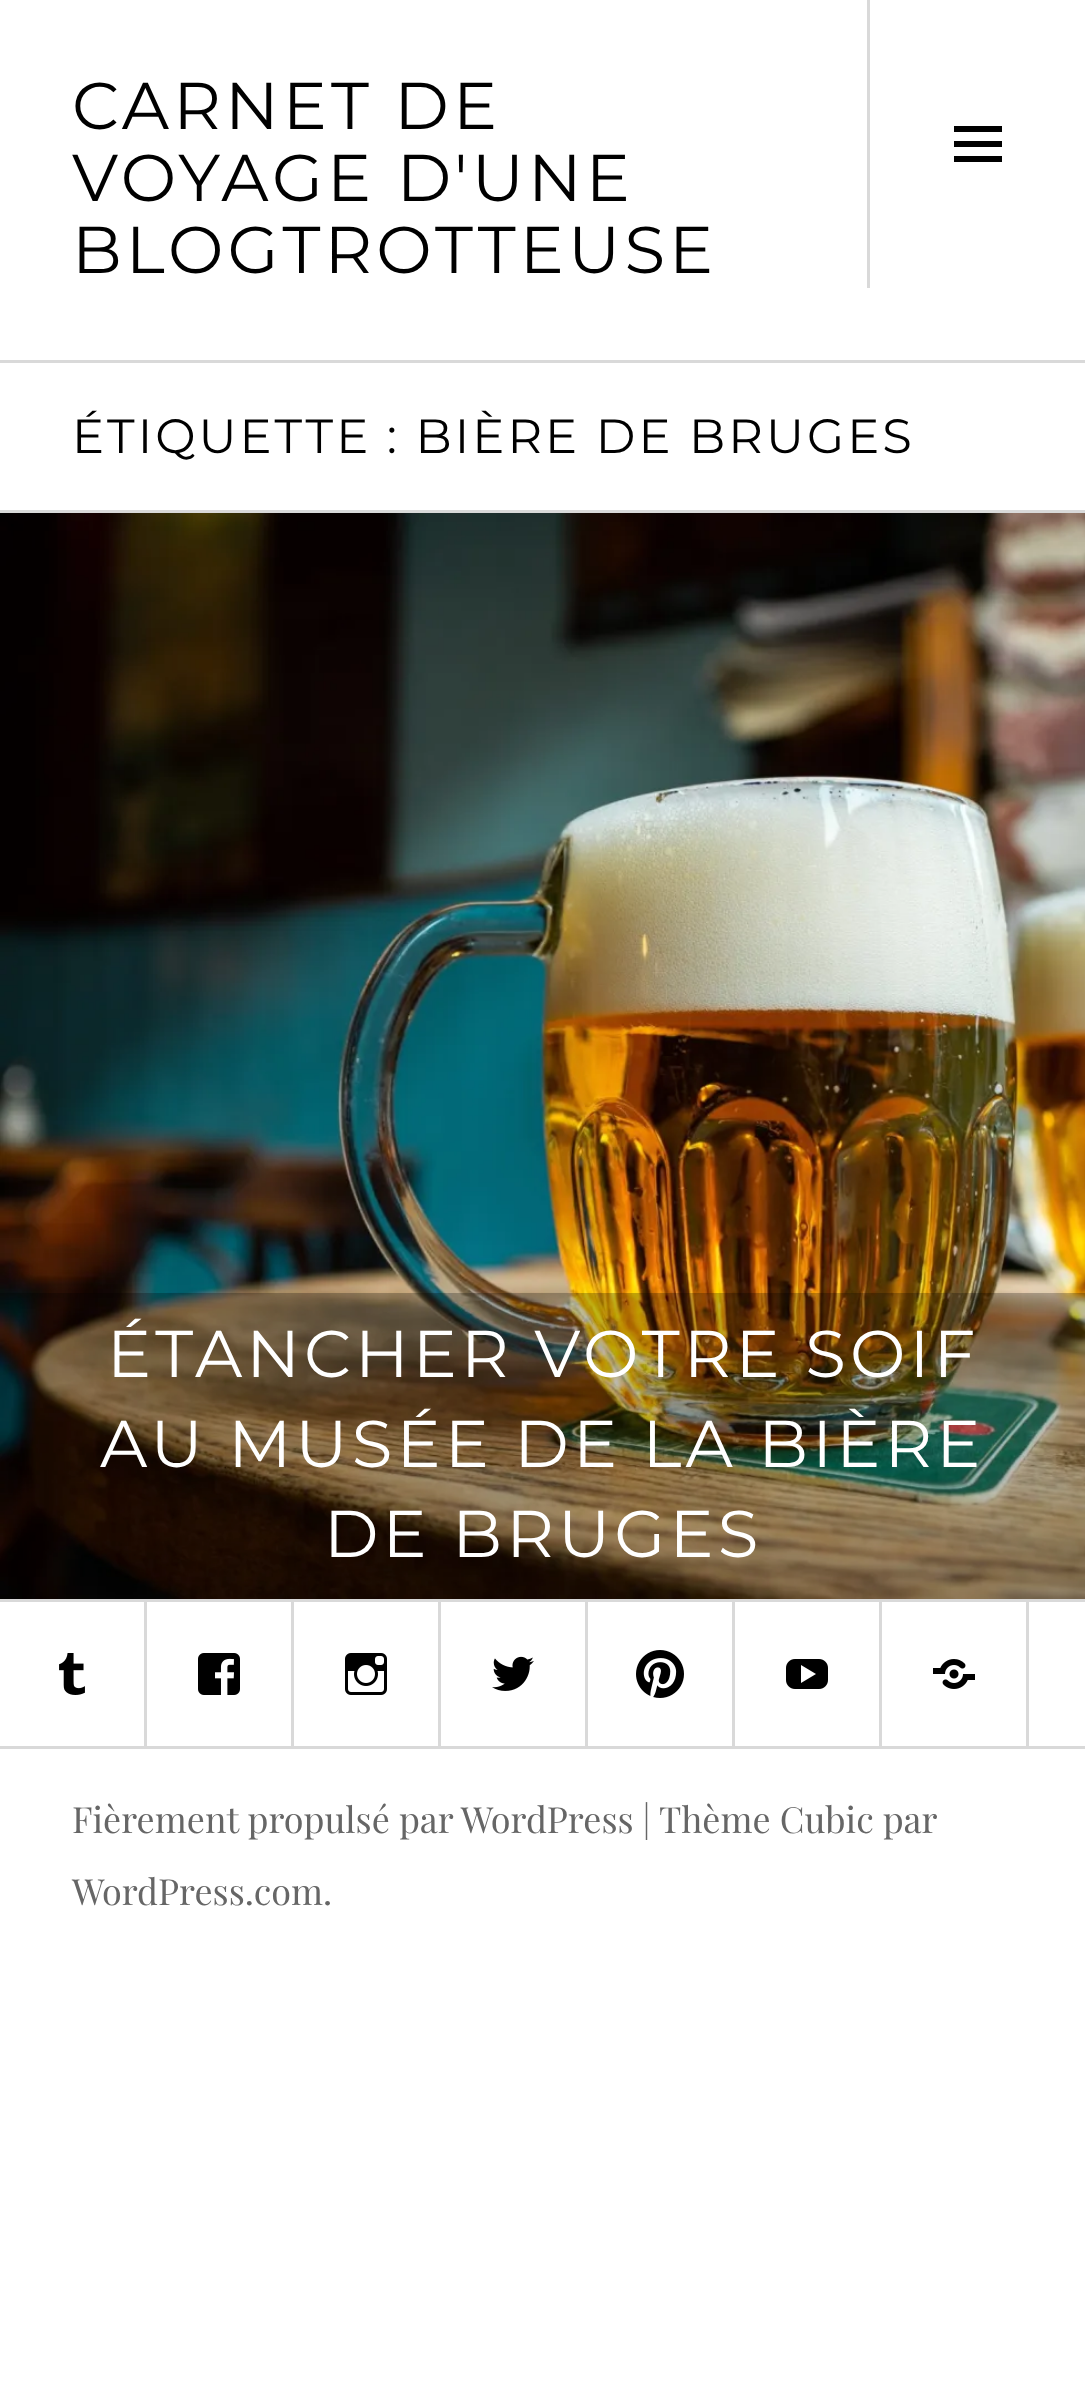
<svg xmlns="http://www.w3.org/2000/svg" width="1085" height="2390" viewBox="0 0 1085 2390">
  <defs>
    <clipPath id="clip1"><path d="M0 1602h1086v360H0z"/></clipPath>
  </defs>
  <rect width="100%" height="100%" fill="#fff"/>
  <path d="M0 360h1085v3H0z" fill="#d9d9d9"/>
  <path d="M867 0h3v288H867z" fill="#d9d9d9"/>
  <path d="M954 162V156H1002V162ZM954 126H1002V132H954ZM954 147V141H1002V147Z" fill="#000"/>
  <path d="M0 510h1085v3H0z" fill="#d9d9d9"/>
  <image x="0" y="513" width="1085" height="1086" href="img/1.png"/>
  <path d="M0 1293h1085v306H0z" fill="#00000040"/>
  <path d="M0 1599h1085v3H0z" fill="#d9d9d9"/>
  <image x="59" y="1653" width="26" height="42" href="img/2.png"/>
  <g clip-path="url(#clip1)">
    <path d="M145.5 1600.5h147v147H145.5z" fill="none" stroke="#d9d9d9" stroke-width="3"/>
  </g>
  <image x="198" y="1653" width="42" height="42" href="img/3.png"/>
  <g clip-path="url(#clip1)">
    <path d="M292.5 1600.5h147v147H292.5z" fill="none" stroke="#d9d9d9" stroke-width="3"/>
  </g>
  <image x="345" y="1653" width="42" height="42" href="img/4.png"/>
  <g clip-path="url(#clip1)">
    <path d="M439.5 1600.5h147v147H439.5z" fill="none" stroke="#d9d9d9" stroke-width="3"/>
  </g>
  <image x="492" y="1656" width="42" height="35" href="img/5.png"/>
  <g clip-path="url(#clip1)">
    <path d="M586.5 1600.5h147v147H586.5z" fill="none" stroke="#d9d9d9" stroke-width="3"/>
  </g>
  <image x="636" y="1650" width="48" height="48" href="img/6.png"/>
  <g clip-path="url(#clip1)">
    <path d="M733.5 1600.5h147v147H733.5z" fill="none" stroke="#d9d9d9" stroke-width="3"/>
  </g>
  <image x="786" y="1659" width="42" height="30" href="img/7.png"/>
  <g clip-path="url(#clip1)">
    <path d="M880.5 1600.5h147v147H880.5z" fill="none" stroke="#d9d9d9" stroke-width="3"/>
  </g>
  <image x="933" y="1659" width="42" height="30" href="img/8.png"/>
  <path d="M0 1746h1085v3H0z" fill="#d9d9d9"/>
  <g font-family="Montserrat" font-size="66" letter-spacing="4.1" fill="#000">
    <text x="72" y="129">CARNET DE</text>
    <text x="72" y="201">VOYAGE D'UNE</text>
    <text x="72" y="273">BLOGTROTTEUSE</text>
  </g>
  <text x="72" y="453" font-family="Montserrat" font-size="48" letter-spacing="3" fill="#000">ÉTIQUETTE : BIÈRE DE BRUGES</text>
  <g font-family="Montserrat" font-size="66" letter-spacing="4.1" fill="#fff">
    <text x="107" y="1377">ÉTANCHER VOTRE SOIF</text>
    <text x="100" y="1467">AU MUSÉE DE LA BIÈRE</text>
    <text x="324" y="1557">DE BRUGES</text>
  </g>
  <g font-family="Playfair Display" font-size="36" fill="#666">
    <text x="72" y="1833">Fièrement propulsé par WordPress |</text>
    <text x="659" y="1833">Thème Cubic par</text>
    <text x="72" y="1905">WordPress.com.</text>
  </g>
</svg>
